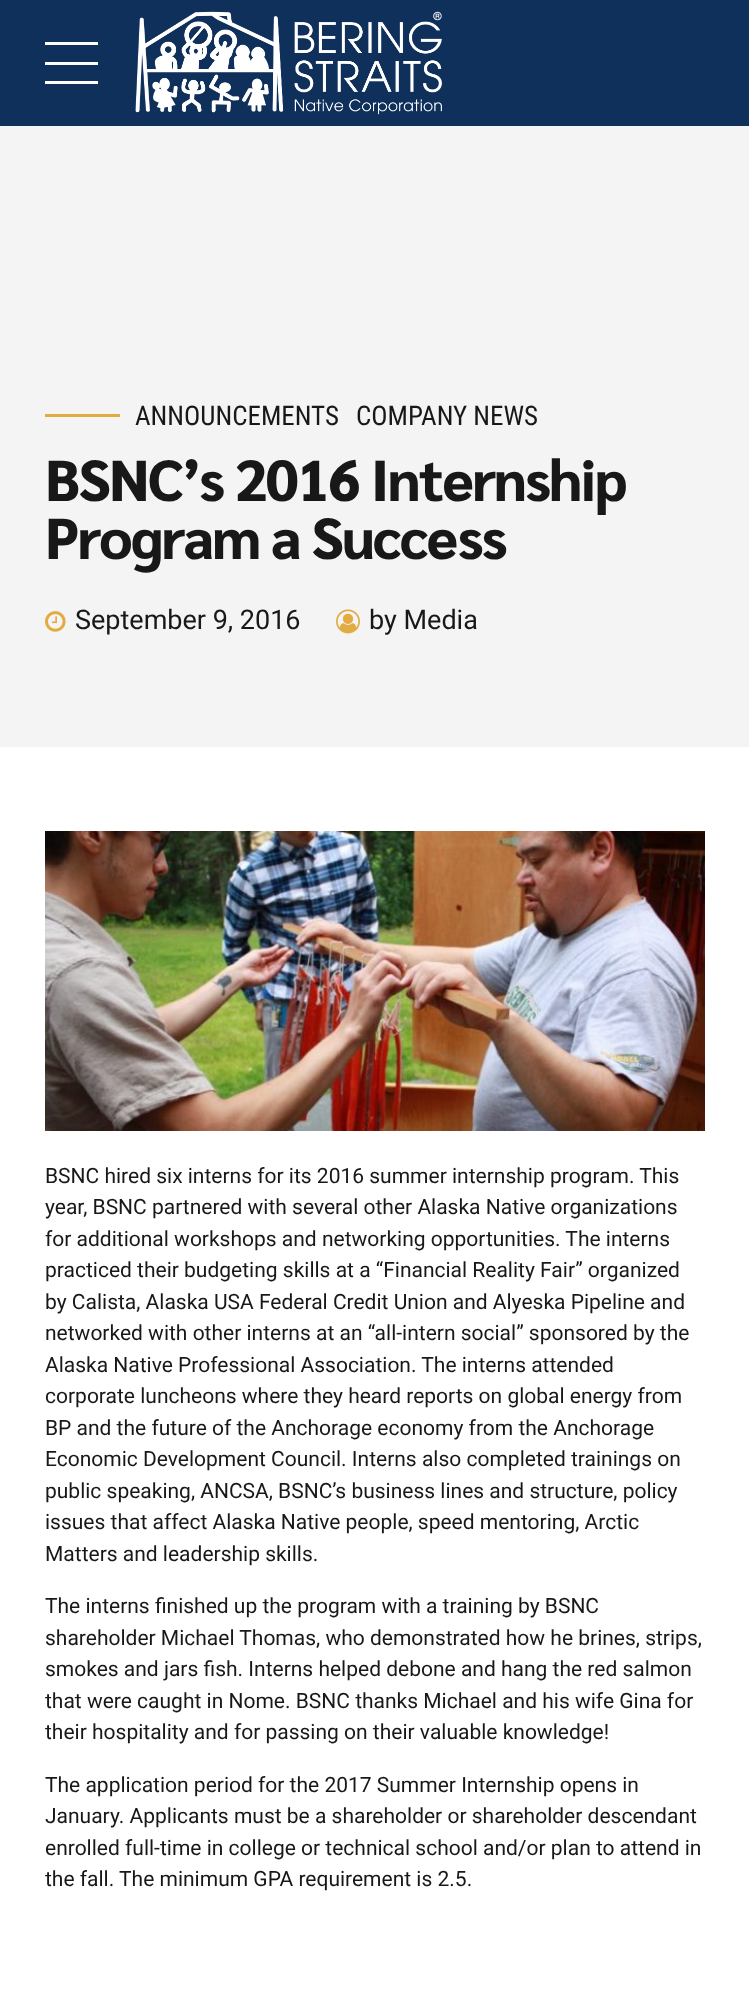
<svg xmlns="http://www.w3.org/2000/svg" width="749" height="2016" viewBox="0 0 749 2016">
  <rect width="100%" height="100%" fill="#fff"/>
  <path d="M0 0h749v126H0z" fill="#10305c"/>
  <path d="M45 42h53v3H45z" fill="#fff"/>
  <path d="M45 62h53v3H45z" fill="#fff"/>
  <path d="M45 81h53v3H45z" fill="#fff"/>
  <image x="135" y="11" width="307" height="104" href="img/1.png"/>
  <path d="M0 126h749v621H0z" fill="#f4f4f4"/>
  <path d="M45 414h75v3H45z" fill="#e2ac43"/>
  <image x="45" y="611" width="21" height="21" href="img/2.png"/>
  <image x="336" y="609" width="24" height="25" href="img/3.png"/>
  <image x="45" y="831" width="660" height="300" href="img/4.png"/>
  <g font-family="Roboto Condensed" font-size="27" fill="#181818">
    <text x="135" y="425">ANNOUNCEMENTS</text>
    <text x="356" y="425">COMPANY NEWS</text>
  </g>
  <g font-family="Sarabun" font-size="57.6" font-weight="800" letter-spacing="-1.75" fill="#181818">
    <text x="45" y="501">BSNC’s 2016 Internship</text>
    <text x="45" y="559">Program a Success</text>
  </g>
  <g font-family="Roboto" font-size="27" fill="#181818">
    <text x="75" y="629">September 9, 2016</text>
    <text x="369" y="629">by Media</text>
  </g>
  <g font-family="Roboto" font-size="21" fill="#181818">
    <text x="45" y="1183">BSNC hired six interns for its 2016 summer internship program. This</text>
    <text x="45" y="1214">year, BSNC partnered with several other Alaska Native organizations</text>
    <text x="45" y="1246">for additional workshops and networking opportunities. The interns</text>
    <text x="45" y="1277">practiced their budgeting skills at a “Financial Reality Fair” organized</text>
    <text x="45" y="1309">by Calista, Alaska USA Federal Credit Union and Alyeska Pipeline and</text>
    <text x="45" y="1340">networked with other interns at an “all-intern social” sponsored by the</text>
    <text x="45" y="1372">Alaska Native Professional Association. The interns attended</text>
    <text x="45" y="1403">corporate luncheons where they heard reports on global energy from</text>
    <text x="45" y="1435">BP and the future of the Anchorage economy from the Anchorage</text>
    <text x="45" y="1466">Economic Development Council. Interns also completed trainings on</text>
    <text x="45" y="1498">public speaking, ANCSA, BSNC’s business lines and structure, policy</text>
    <text x="45" y="1529">issues that affect Alaska Native people, speed mentoring, Arctic</text>
    <text x="45" y="1561">Matters and leadership skills.</text>
    <text x="45" y="1613">The interns finished up the program with a training by BSNC</text>
    <text x="45" y="1645">shareholder Michael Thomas, who demonstrated how he brines, strips,</text>
    <text x="45" y="1676">smokes and jars fish. Interns helped debone and hang the red salmon</text>
    <text x="45" y="1708">that were caught in Nome. BSNC thanks Michael and his wife Gina for</text>
    <text x="45" y="1739">their hospitality and for passing on their valuable knowledge!</text>
    <text x="45" y="1792">The application period for the 2017 Summer Internship opens in</text>
    <text x="45" y="1823">January. Applicants must be a shareholder or shareholder descendant</text>
    <text x="45" y="1855">enrolled full-time in college or technical school and/or plan to attend in</text>
    <text x="45" y="1886">the fall. The minimum GPA requirement is 2.5.</text>
  </g>
</svg>
